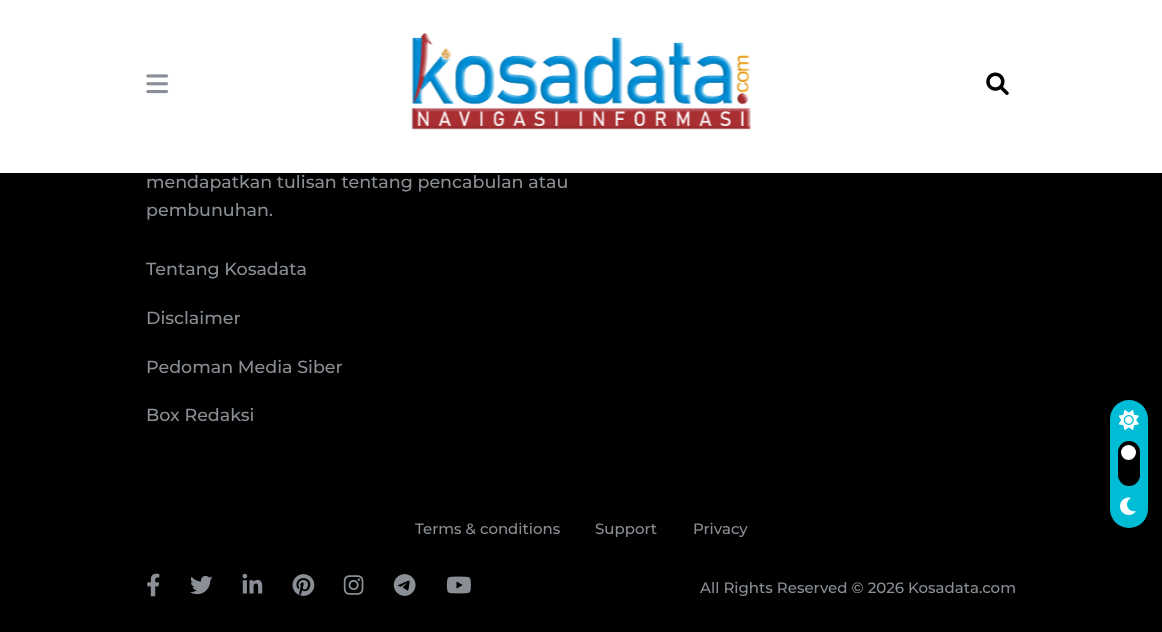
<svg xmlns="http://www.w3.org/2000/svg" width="1162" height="632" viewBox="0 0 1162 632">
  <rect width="100%" height="100%" fill="#000"/>
  <path d="M0 9h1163v172H0z" fill="#00000026" filter="blur(7.5px)"/>
  <path d="M0 0h1162v173H0z" fill="#fff"/>
  <image x="146" y="74" width="23" height="20" href="img/1.png"/>
  <image x="411" y="33" width="340" height="97" href="img/2.png"/>
  <image x="986" y="72" width="23" height="23" href="img/3.png"/>
  <image x="147" y="573" width="13" height="24" href="img/4.png"/>
  <image x="190" y="575" width="23" height="20" href="img/5.png"/>
  <image x="242" y="573" width="21" height="21" href="img/6.png"/>
  <image x="292" y="574" width="23" height="22" href="img/7.png"/>
  <image x="343" y="575" width="21" height="20" href="img/8.png"/>
  <image x="393" y="574" width="23" height="22" href="img/9.png"/>
  <image x="446" y="576" width="25" height="18" href="img/10.png"/>
  <rect x="1110" y="400" width="38" height="128" rx="19" fill="#00bcd5"/>
  <image x="1118" y="410" width="21" height="20" href="img/11.png"/>
  <rect x="1118" y="441" width="22" height="45" rx="11" fill="#000"/>
  <circle cx="1128.5" cy="452.5" r="7.5" fill="#fff"/>
  <image x="1120" y="497" width="16" height="18" href="img/12.png"/>
  <g font-family="Montserrat" font-size="17.5" font-weight="500" fill="#8a8f95">
    <text x="146" y="188">mendapatkan tulisan tentang pencabulan atau</text>
    <text x="146" y="216">pembunuhan.</text>
    <text x="146" y="275">Tentang Kosadata</text>
    <text x="146" y="324">Disclaimer</text>
    <text x="146" y="373">Pedoman Media Siber</text>
    <text x="146" y="421">Box Redaksi</text>
  </g>
  <g font-family="Montserrat" font-size="15" font-weight="500" fill="#8a8f95">
    <text x="415" y="534">Terms &amp; conditions</text>
    <text x="595" y="534">Support</text>
    <text x="693" y="534">Privacy</text>
    <text x="700" y="593">All Rights Reserved © 2026 Kosadata.com</text>
  </g>
</svg>
